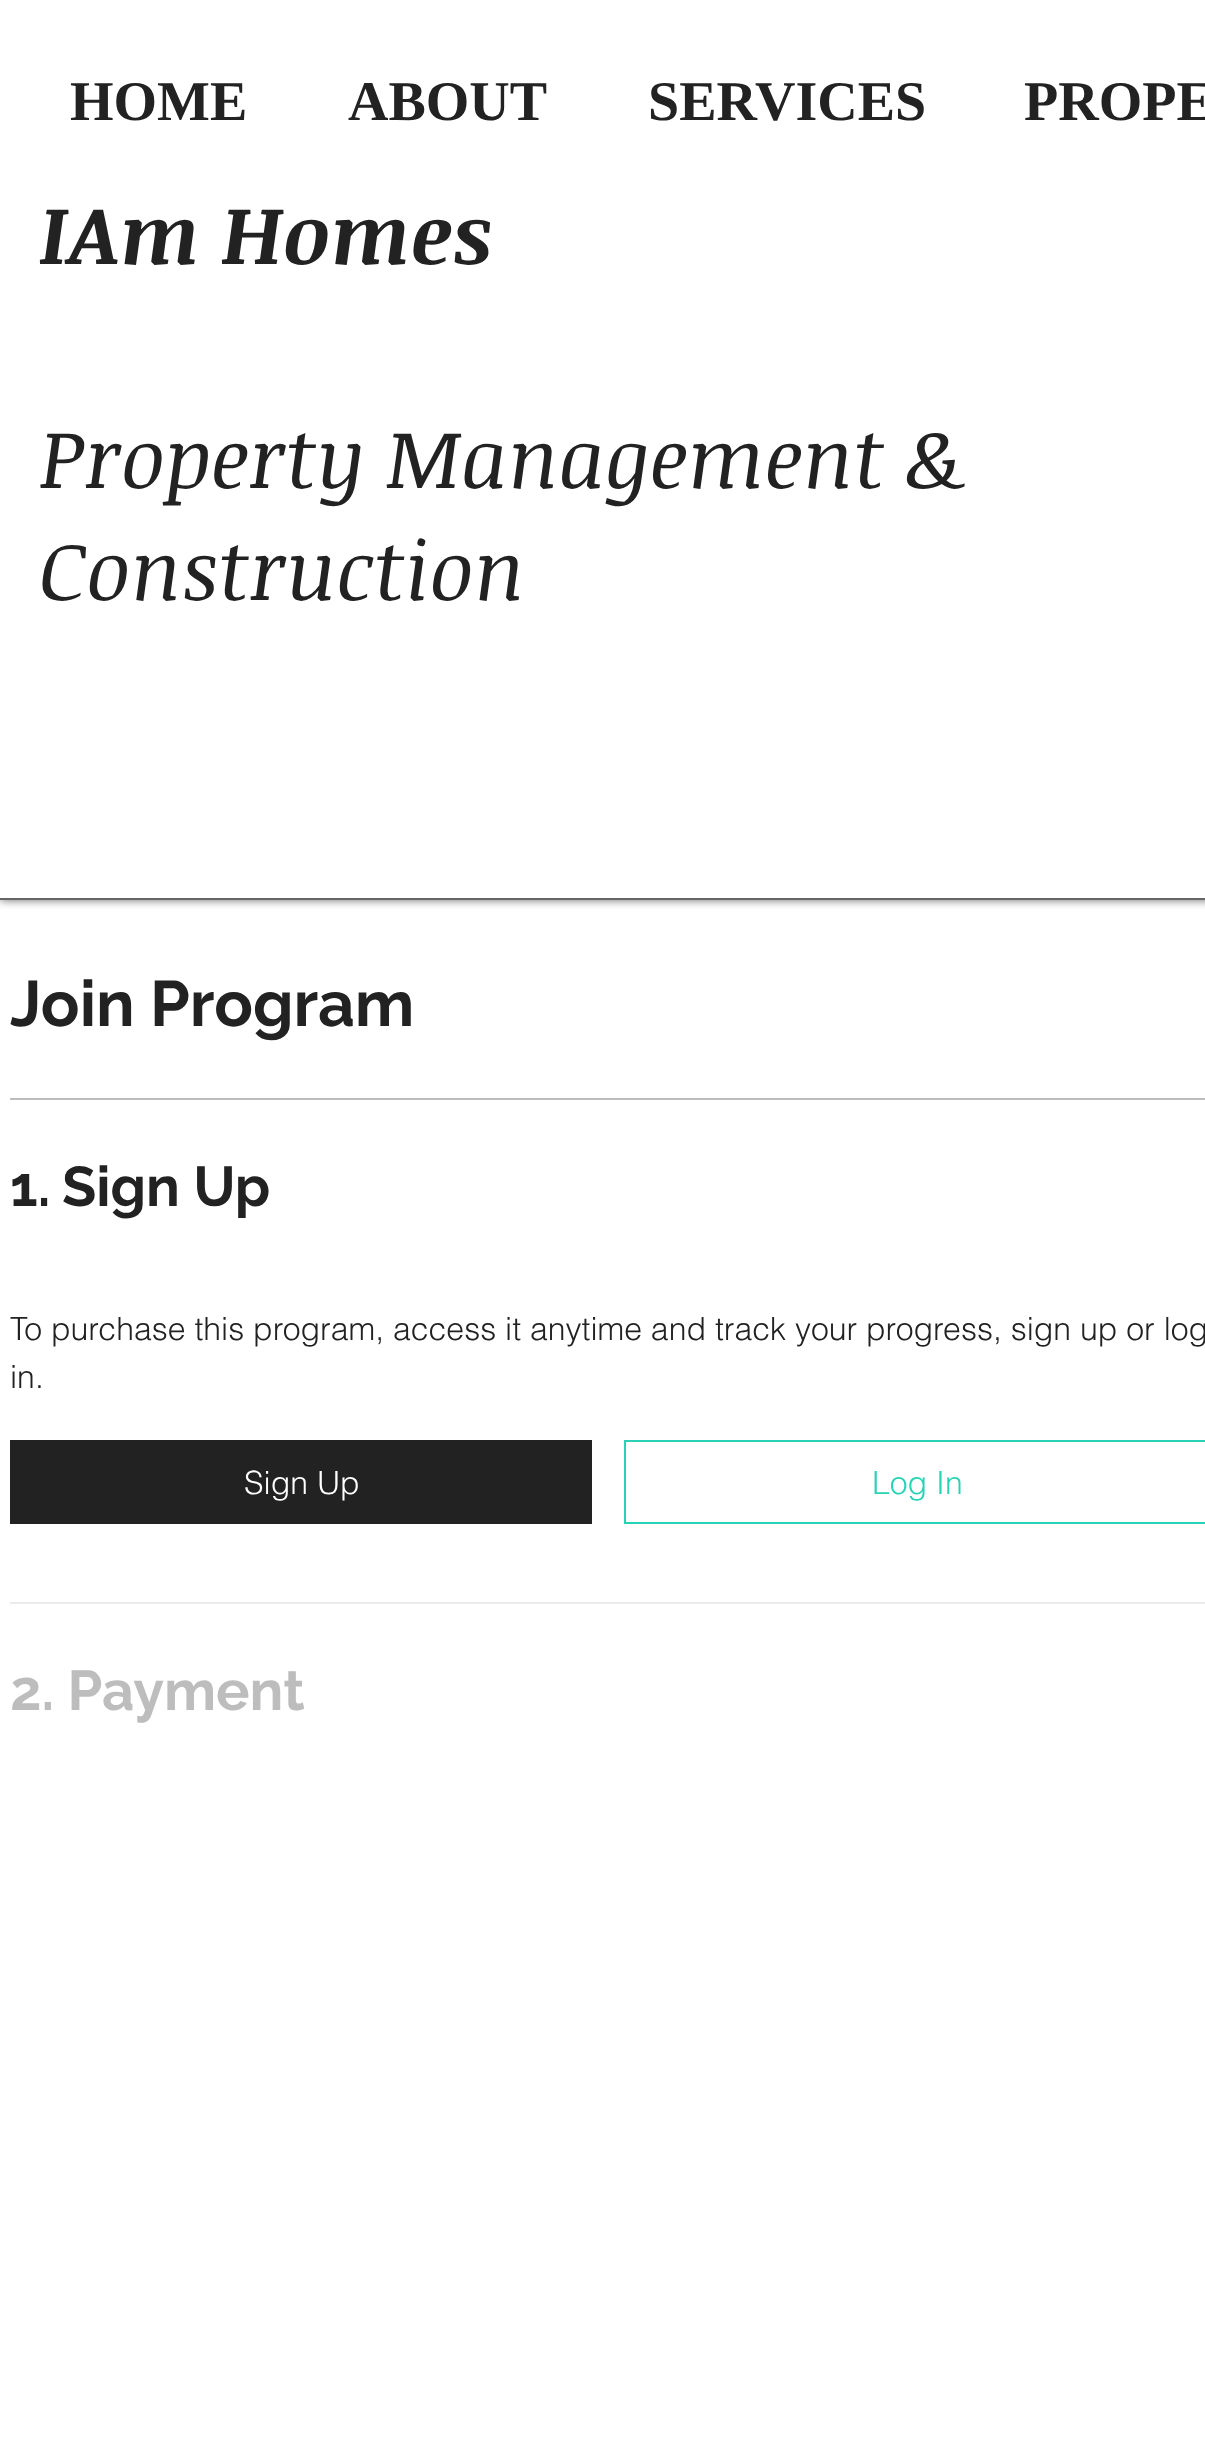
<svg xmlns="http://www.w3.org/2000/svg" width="1205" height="2450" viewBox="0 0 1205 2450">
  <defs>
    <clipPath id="clip1"><path d="M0 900h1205v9H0z"/></clipPath>
  </defs>
  <rect width="100%" height="100%" fill="#fff"/>
  <g clip-path="url(#clip1)">
    <path d="M0 0h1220v900H0z" fill="#00000099" filter="blur(5px)"/>
  </g>
  <path d="M0 898h1205v2H0z" fill="#666"/>
  <path d="M10 1098h1195v2H10z" fill="#bdbdbd"/>
  <path d="M10 1440h582v84H10z" fill="#222"/>
  <path d="M625 1441h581v82H625z" fill="none" stroke="#27d3b4" stroke-width="2"/>
  <path d="M10 1602h1195v2H10z" fill="#ebebeb"/>
  <g font-family="Liberation Serif" font-size="56" font-weight="bold" fill="#222">
    <text x="70" y="120">HOME</text>
    <text x="348" y="120">ABOUT</text>
    <text x="648" y="120">SERVICES</text>
    <text x="1024" y="120">PROPE</text>
  </g>
  <text x="40" y="264" font-family="Noticia Text" font-size="82" font-weight="bold" font-style="italic" fill="#222">IAm Homes</text>
  <g font-family="Noticia Text" font-size="82" font-style="italic" fill="#222">
    <text x="40" y="488">Property Management &amp;</text>
    <text x="40" y="600">Construction</text>
  </g>
  <text x="10" y="1026" font-family="Raleway" font-size="64" font-weight="bold" fill="#222">Join Program</text>
  <g font-family="Raleway" font-size="56" font-weight="bold" fill="#222">
    <text x="10" y="1206">1.</text>
    <text x="62" y="1206">Sign Up</text>
  </g>
  <g font-family="helvetica" font-size="32" font-weight="300" fill="#222">
    <text x="10" y="1340">To purchase this program, access it anytime and track your progress, sign up or log</text>
    <text x="10" y="1388">in.</text>
  </g>
  <text x="244" y="1494" font-family="helvetica" font-size="32" font-weight="300" fill="#fff">Sign Up</text>
  <text x="872" y="1494" font-family="helvetica" font-size="32" font-weight="300" fill="#27d3b4">Log In</text>
  <text x="10" y="1710" font-family="Raleway" font-size="56" font-weight="bold" fill="#bdbdbd">2. Payment</text>
</svg>
